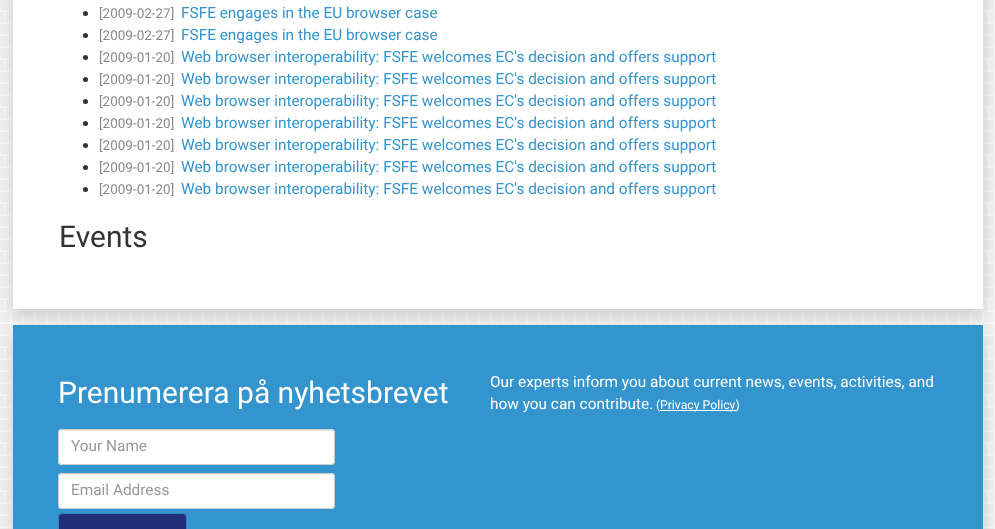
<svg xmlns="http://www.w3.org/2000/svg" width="995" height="529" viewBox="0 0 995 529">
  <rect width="100%" height="100%" fill="#f9f9f9"/>
  <image x="0" y="0" width="994" height="529" href="img/1.png"/>
  <path d="M13 -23h970v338H13z" fill="#c8c8c8" filter="blur(7.5px)"/>
  <path d="M13 0h970v309H13z" fill="#fff"/>
  <circle cx="85.5" cy="13.5" r="2.5" fill="#333"/>
  <circle cx="85.5" cy="35.5" r="2.5" fill="#333"/>
  <circle cx="85.5" cy="57.5" r="2.5" fill="#333"/>
  <circle cx="85.5" cy="79.5" r="2.5" fill="#333"/>
  <circle cx="85.5" cy="101.5" r="2.5" fill="#333"/>
  <circle cx="85.5" cy="123.5" r="2.5" fill="#333"/>
  <circle cx="85.5" cy="145.5" r="2.5" fill="#333"/>
  <circle cx="85.5" cy="167.5" r="2.5" fill="#333"/>
  <circle cx="85.5" cy="189.5" r="2.5" fill="#333"/>
  <path d="M13 331h970v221H13z" fill="#c8c8c8" filter="blur(7.5px)"/>
  <path d="M13 325h970v204H13z" fill="#3394ce"/>
  <path d="M660 410h76v1H660z" fill="#fff"/>
  <rect x="58" y="429" width="277" height="36" rx="4" fill="#fff"/>
  <path d="M62 431H331C333 431 334 432 334 434V433C334 431 333 430 331 430H62C60 430 59 431 59 433V434C59 432 60 431 62 431Z" fill="#ececec"/>
  <rect x="58.5" y="429.5" width="276" height="35" rx="3.5" fill="none" stroke="#ccc"/>
  <rect x="58" y="473" width="277" height="36" rx="4" fill="#fff"/>
  <path d="M62 475H331C333 475 334 476 334 478V477C334 475 333 474 331 474H62C60 474 59 475 59 477V478C59 476 60 475 62 475Z" fill="#ececec"/>
  <rect x="58.5" y="473.5" width="276" height="35" rx="3.5" fill="none" stroke="#ccc"/>
  <rect x="58.5" y="513.5" width="128" height="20" rx="3.5" fill="#202d79" stroke="#2d86bb"/>
  <text x="99" y="18" font-family="Roboto" font-size="13.5" fill="#888">[2009-02-27]</text>
  <text x="181" y="18" font-family="Roboto" font-size="15.4" fill="#3394ce">FSFE engages in the EU browser case</text>
  <text x="99" y="40" font-family="Roboto" font-size="13.5" fill="#888">[2009-02-27]</text>
  <text x="181" y="40" font-family="Roboto" font-size="15.4" fill="#3394ce">FSFE engages in the EU browser case</text>
  <text x="99" y="62" font-family="Roboto" font-size="13.5" fill="#888">[2009-01-20]</text>
  <text x="181" y="62" font-family="Roboto" font-size="15.4" fill="#3394ce">Web browser interoperability: FSFE welcomes EC's decision and offers support</text>
  <text x="99" y="84" font-family="Roboto" font-size="13.5" fill="#888">[2009-01-20]</text>
  <text x="181" y="84" font-family="Roboto" font-size="15.4" fill="#3394ce">Web browser interoperability: FSFE welcomes EC's decision and offers support</text>
  <text x="99" y="106" font-family="Roboto" font-size="13.5" fill="#888">[2009-01-20]</text>
  <text x="181" y="106" font-family="Roboto" font-size="15.4" fill="#3394ce">Web browser interoperability: FSFE welcomes EC's decision and offers support</text>
  <text x="99" y="128" font-family="Roboto" font-size="13.5" fill="#888">[2009-01-20]</text>
  <text x="181" y="128" font-family="Roboto" font-size="15.4" fill="#3394ce">Web browser interoperability: FSFE welcomes EC's decision and offers support</text>
  <text x="99" y="150" font-family="Roboto" font-size="13.5" fill="#888">[2009-01-20]</text>
  <text x="181" y="150" font-family="Roboto" font-size="15.4" fill="#3394ce">Web browser interoperability: FSFE welcomes EC's decision and offers support</text>
  <text x="99" y="172" font-family="Roboto" font-size="13.5" fill="#888">[2009-01-20]</text>
  <text x="181" y="172" font-family="Roboto" font-size="15.4" fill="#3394ce">Web browser interoperability: FSFE welcomes EC's decision and offers support</text>
  <text x="99" y="194" font-family="Roboto" font-size="13.5" fill="#888">[2009-01-20]</text>
  <text x="181" y="194" font-family="Roboto" font-size="15.4" fill="#3394ce">Web browser interoperability: FSFE welcomes EC's decision and offers support</text>
  <text x="59" y="247" font-family="Roboto" font-size="30" fill="#333">Events</text>
  <text x="58" y="403" font-family="Roboto" font-size="30" fill="#fff">Prenumerera på nyhetsbrevet</text>
  <g font-family="Roboto" font-size="15.4" fill="#fff">
    <text x="490" y="387">Our experts inform you about current news, events, activities, and</text>
    <text x="490" y="409">how you can contribute.</text>
  </g>
  <g font-family="Roboto" font-size="12.25" fill="#fff">
    <text x="656" y="409">(</text>
    <text x="660" y="409">Privacy Policy)</text>
  </g>
  <g font-family="Roboto" font-size="15.4" fill="#999">
    <text x="71" y="451">Your Name</text>
    <text x="71" y="495">Email Address</text>
  </g>
</svg>
